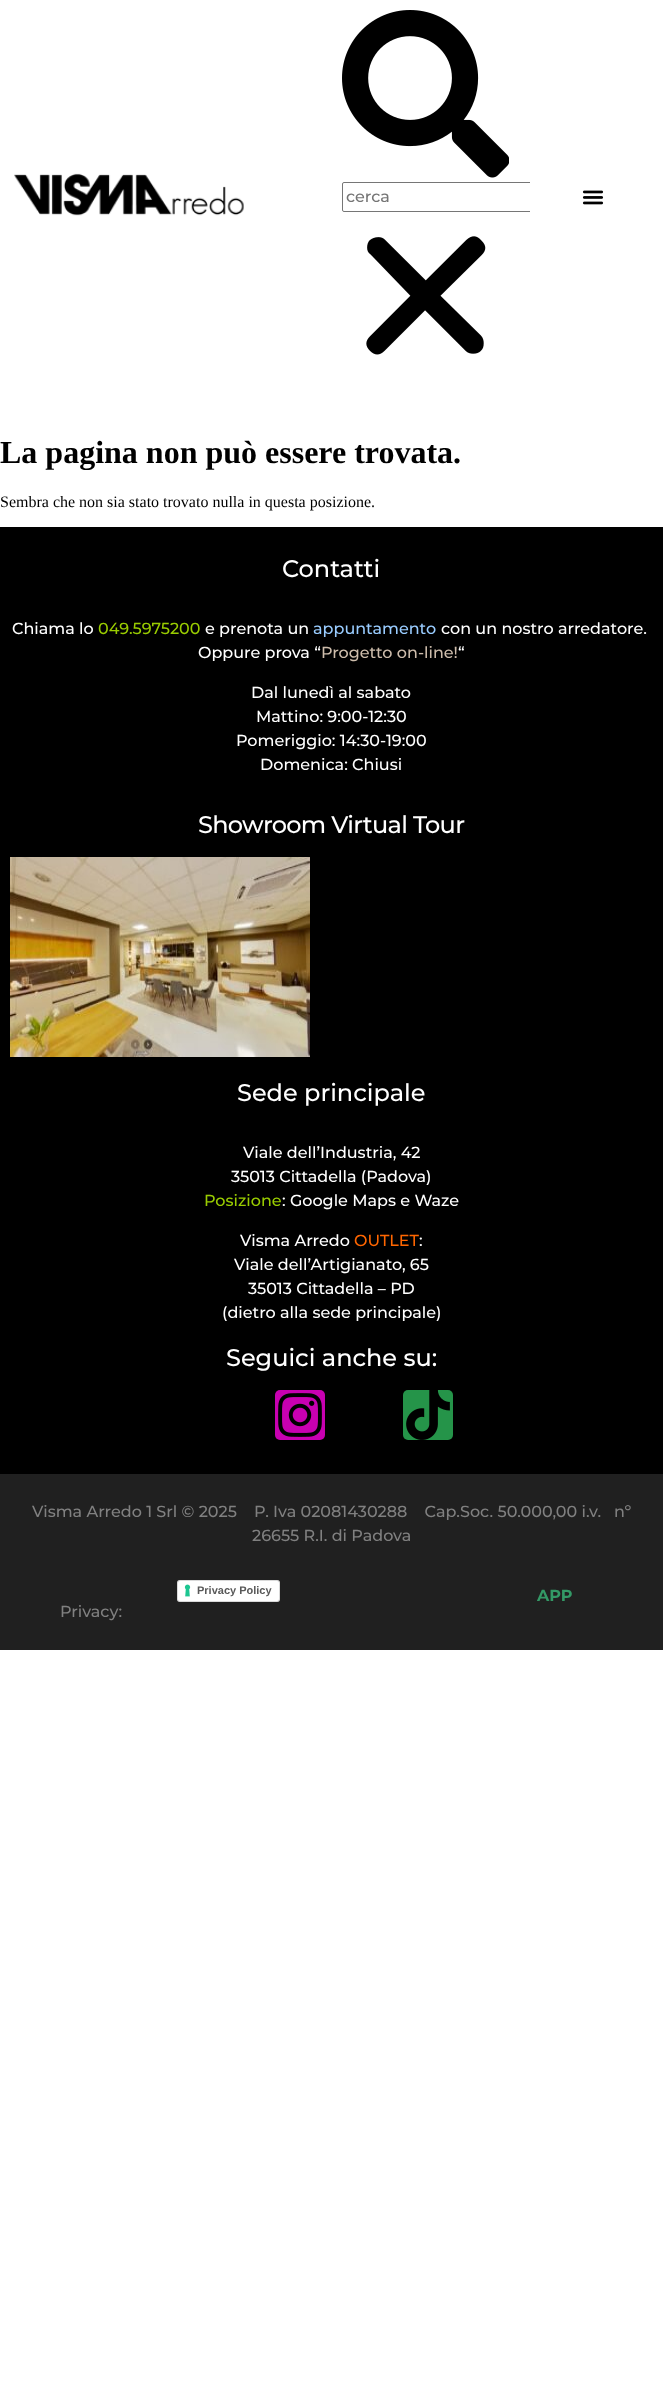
<svg xmlns="http://www.w3.org/2000/svg" width="663" height="2404" viewBox="0 0 663 2404">
  <rect width="100%" height="100%" fill="#fff"/>
  <image x="14" y="173" width="230" height="43" href="img/1.png"/>
  <image x="342" y="10" width="167" height="168" href="img/2.png"/>
  <rect x="342.5" y="182.5" width="227" height="29" rx="1.5" fill="none" stroke="#767676"/>
  <image x="366" y="236" width="120" height="119" href="img/3.png"/>
  <path d="M530 182h40v30H530z" fill="#fff"/>
  <image x="582" y="190" width="22" height="15" href="img/4.png"/>
  <path d="M0 527h663v947H0z" fill="#000"/>
  <image x="10" y="857" width="300" height="200" href="img/5.png"/>
  <rect x="275" y="1390" width="50" height="50" rx="5" fill="#c800b1"/>
  <image x="278" y="1393" width="44" height="44" href="img/6.png"/>
  <rect x="403" y="1390" width="50" height="50" rx="5" fill="#259449"/>
  <image x="406" y="1390" width="44" height="50" href="img/7.png"/>
  <path d="M0 1474h663v176H0z" fill="#202020"/>
  <rect x="177" y="1580" width="103" height="22" rx="3" fill="#fff"/>
  <image x="184" y="1584" width="7" height="13" href="img/8.png"/>
  <rect x="177.5" y="1580.5" width="102" height="21" rx="2.5" fill="none" stroke="#00000026"/>
  <text x="346" y="202" font-family="Montserrat" font-size="16" font-weight="500" fill="#757575">cerca</text>
  <text x="0" y="463" font-family="Liberation Serif" font-size="32" font-weight="bold" fill="#000">La pagina non può essere trovata.</text>
  <text x="0" y="507" font-family="Liberation Serif" font-size="16" fill="#000">Sembra che non sia stato trovato nulla in questa posizione.</text>
  <text x="282" y="577" font-family="Montserrat" font-size="24" font-weight="500" fill="#fff">Contatti</text>
  <text x="12" y="634" font-family="Montserrat" font-size="16" font-weight="500" fill="#fff">Chiama lo</text>
  <text x="98" y="634" font-family="Montserrat" font-size="16" font-weight="500" fill="#9c0">049.5975200</text>
  <text x="205" y="634" font-family="Montserrat" font-size="16" font-weight="500" fill="#fff">e prenota un</text>
  <text x="313" y="634" font-family="Montserrat" font-size="16" font-weight="500" fill="#9cf">appuntamento</text>
  <g font-family="Montserrat" font-size="16" font-weight="500" fill="#fff">
    <text x="441" y="634">con un nostro arredatore.</text>
    <text x="198" y="658">Oppure prova “</text>
  </g>
  <text x="321" y="658" font-family="Montserrat" font-size="16" font-weight="500" fill="#cdbcab">Progetto on-line!</text>
  <g font-family="Montserrat" font-size="16" font-weight="500" fill="#fff">
    <text x="458" y="658">“</text>
    <text x="251" y="698">Dal lunedì al sabato</text>
    <text x="256" y="722">Mattino: 9:00-12:30</text>
    <text x="236" y="746">Pomeriggio: 14:30-19:00</text>
    <text x="260" y="770">Domenica: Chiusi</text>
  </g>
  <text x="198" y="833" font-family="Montserrat" font-size="24" font-weight="500" letter-spacing="-0.7" fill="#fff">Showroom Virtual Tour</text>
  <text x="237" y="1101" font-family="Montserrat" font-size="24" font-weight="500" fill="#fff">Sede principale</text>
  <g font-family="Montserrat" font-size="16" font-weight="500" fill="#fff">
    <text x="243" y="1158">Viale dell’Industria, 42</text>
    <text x="231" y="1182">35013 Cittadella (Padova)</text>
  </g>
  <text x="204" y="1206" font-family="Montserrat" font-size="16" font-weight="500" fill="#9c0">Posizione</text>
  <g font-family="Montserrat" font-size="16" font-weight="500" fill="#fff">
    <text x="282" y="1206">: Google Maps e Waze</text>
    <text x="240" y="1246">Visma Arredo</text>
  </g>
  <text x="354" y="1246" font-family="Montserrat" font-size="16" font-weight="500" fill="#f60">OUTLET</text>
  <g font-family="Montserrat" font-size="16" font-weight="500" fill="#fff">
    <text x="419" y="1246">:</text>
    <text x="234" y="1270">Viale dell’Artigianato, 65</text>
    <text x="248" y="1294">35013 Cittadella – PD</text>
    <text x="222" y="1318">(dietro alla sede principale)</text>
  </g>
  <text x="226" y="1366" font-family="Montserrat" font-size="24" font-weight="500" fill="#fff">Seguici anche su:</text>
  <g font-family="Montserrat" font-size="16" font-weight="500" fill="#808080">
    <text x="32" y="1517" xml:space="preserve">Visma Arredo 1 Srl © 2025    P. Iva 02081430288    Cap.Soc. 50.000,00 i.v.   nº</text>
    <text x="252" y="1541">26655 R.I. di Padova</text>
  </g>
  <text x="197" y="1594" font-family="Liberation Sans" font-size="11" font-weight="bold" fill="#595959">Privacy Policy</text>
  <text x="537" y="1601" font-family="Montserrat" font-size="16" font-weight="bold" fill="#396">APP</text>
  <text x="60" y="1617" font-family="Montserrat" font-size="16" font-weight="500" fill="#808080">Privacy:</text>
</svg>
